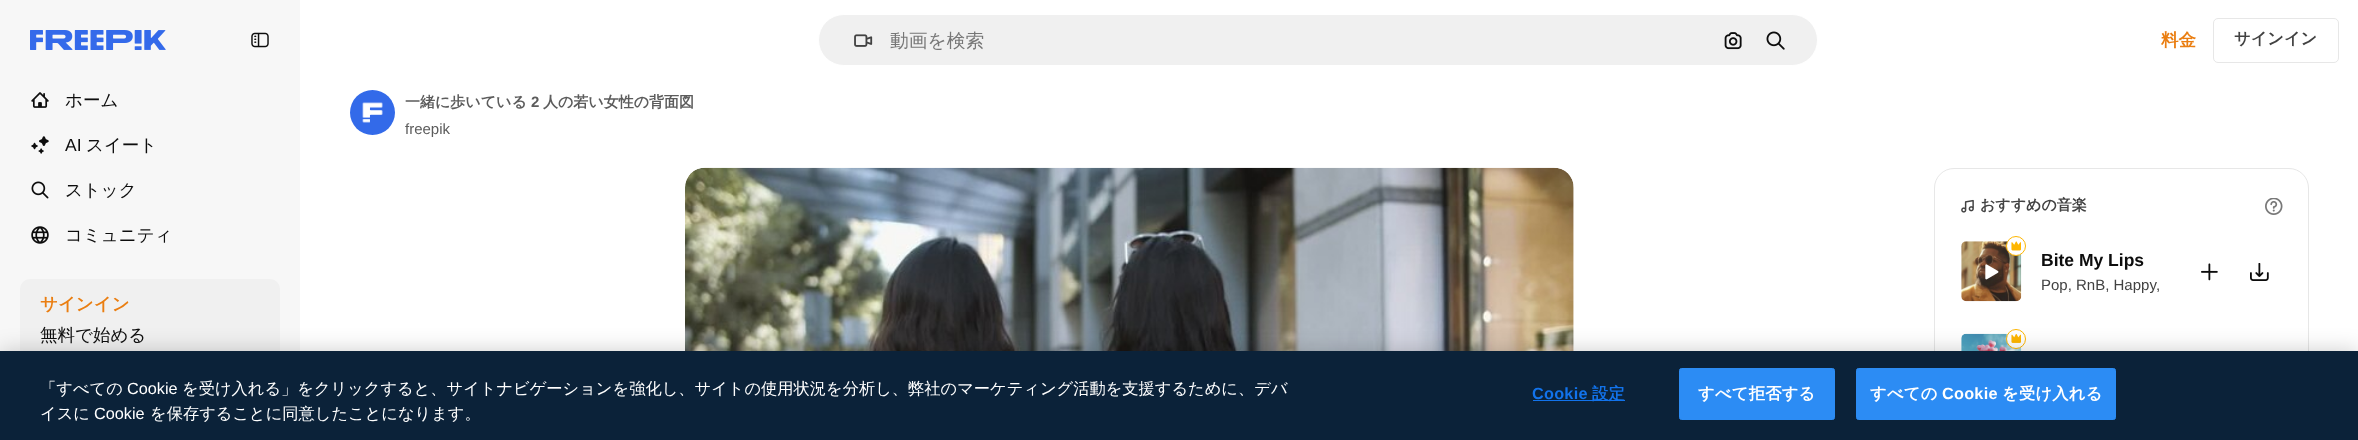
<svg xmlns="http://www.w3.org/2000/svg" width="2358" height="440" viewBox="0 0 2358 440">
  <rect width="100%" height="100%" fill="#fff"/>
  <path d="M0 0h300v351H0z" fill="#f7f7f7"/>
  <image x="30" y="30" width="136" height="20" href="img/1.png"/>
  <image x="251" y="32" width="18" height="16" href="img/2.png"/>
  <image x="31" y="92" width="18" height="16" href="img/3.png"/>
  <image x="31" y="136" width="18" height="18" href="img/4.png"/>
  <image x="31" y="181" width="18" height="18" href="img/5.png"/>
  <image x="31" y="226" width="18" height="18" href="img/6.png"/>
  <rect x="20" y="279" width="260" height="81" rx="10" fill="#f0f0f0"/>
  <rect x="818.5" y="14.5" width="999" height="51" rx="25.5" fill="#f0f0f0" stroke="#fff"/>
  <image x="854" y="34" width="19" height="13" href="img/7.png"/>
  <image x="1724" y="32" width="18" height="18" href="img/8.png"/>
  <image x="1766" y="31" width="19" height="19" href="img/9.png"/>
  <rect x="2213.5" y="18.5" width="125" height="44" rx="4.5" fill="none" stroke="#e7e7e7"/>
  <image x="350" y="90" width="45" height="45" href="img/10.png"/>
  <image x="685" y="167" width="889" height="184" href="img/11.png"/>
  <rect x="1934.5" y="168.5" width="374" height="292" rx="19.5" fill="none" stroke="#e7e7e7"/>
  <image x="1961" y="199" width="13" height="14" href="img/12.png"/>
  <image x="2265" y="198" width="18" height="17" href="img/13.png"/>
  <image x="1961" y="241" width="61" height="61" href="img/15.png"/>
  <circle cx="2016" cy="246" r="9.5" fill="#fff" stroke="#feb601"/>
  <image x="2011" y="241" width="10" height="10" href="img/14.png"/>
  <image x="1985" y="264" width="14" height="16" href="img/16.png"/>
  <image x="2201" y="263" width="17" height="18" href="img/17.png"/>
  <image x="2250" y="263" width="19" height="18" href="img/18.png"/>
  <image x="1961" y="333" width="61" height="18" href="img/20.png"/>
  <circle cx="2016" cy="339" r="9.5" fill="#fff" stroke="#feb601"/>
  <image x="2011" y="334" width="10" height="9" href="img/19.png"/>
  <path d="M0 351h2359v89H0z" fill="#00000033" filter="blur(11px)"/>
  <path d="M0 351h2358v89H0z" fill="#0b2239"/>
  <path d="M1533 400h92v1H1533z" fill="#1273eb"/>
  <rect x="1679.5" y="368.5" width="155" height="51" rx="2" fill="#2c8cf4" stroke="#2c8cf4"/>
  <rect x="1856.5" y="368.5" width="259" height="51" rx="2" fill="#2c8cf4" stroke="#2c8cf4"/>
  <text x="65" y="106" font-family="WenQuanYi Zen Hei" font-size="17.5" font-weight="500" fill="#0d0d0d">ホーム</text>
  <text x="65" y="151" font-family="Liberation Sans" font-size="17.5" fill="#0d0d0d">AI</text>
  <g font-family="WenQuanYi Zen Hei" font-size="17.5" font-weight="500" fill="#0d0d0d">
    <text x="86" y="151">スイート</text>
    <text x="65" y="196">ストック</text>
    <text x="65" y="241">コミュニティ</text>
  </g>
  <text x="40" y="310" font-family="WenQuanYi Zen Hei" font-size="17.5" font-weight="bold" fill="#ea7e11">サインイン</text>
  <text x="40" y="341" font-family="WenQuanYi Zen Hei" font-size="17.5" font-weight="500" fill="#0d0d0d">無料で始める</text>
  <text x="890" y="47" font-family="WenQuanYi Zen Hei" font-size="18.75" font-weight="500" fill="#777">動画を検索</text>
  <text x="2161" y="46" font-family="WenQuanYi Zen Hei" font-size="17.5" font-weight="bold" fill="#ea7e11">料金</text>
  <text x="2234" y="44" font-family="WenQuanYi Zen Hei" font-size="16.25" font-weight="bold" fill="#424242">サインイン</text>
  <text x="405" y="107" font-family="WenQuanYi Zen Hei" font-size="15" font-weight="bold" fill="#5c5c5c">一緒に歩いている</text>
  <text x="531" y="107" font-family="Liberation Sans" font-size="15" font-weight="bold" fill="#5c5c5c">2</text>
  <text x="543" y="107" font-family="WenQuanYi Zen Hei" font-size="15" font-weight="bold" fill="#5c5c5c">人の若い女性の背面図</text>
  <text x="405" y="134" font-family="Liberation Sans" font-size="15" fill="#5c5c5c">freepik</text>
  <text x="1980" y="210" font-family="WenQuanYi Zen Hei" font-size="15" font-weight="bold" fill="#424242">おすすめの音楽</text>
  <text x="2041" y="266" font-family="Liberation Sans" font-size="17.5" font-weight="bold" fill="#0d0d0d">Bite My Lips</text>
  <g font-family="Liberation Sans" font-size="15" fill="#424242">
    <text x="2041" y="290">Pop, RnB, Happy</text>
    <text x="2156" y="290">,</text>
  </g>
  <text x="40" y="394" font-family="WenQuanYi Zen Hei" font-size="16.25" font-weight="500" fill="#fff">「すべての</text>
  <text x="127" y="394" font-family="Liberation Sans" font-size="16.25" fill="#fff">Cookie</text>
  <g font-family="WenQuanYi Zen Hei" font-size="16.25" font-weight="500" fill="#fff">
    <text x="182" y="394">を受け入れる」をクリックすると、サイトナビゲーションを強化し、サイトの使用状況を分析し、弊社のマーケティング活動を支援するために、デバ</text>
    <text x="40" y="419">イスに</text>
  </g>
  <text x="94" y="419" font-family="Liberation Sans" font-size="16.25" fill="#fff">Cookie</text>
  <text x="150" y="419" font-family="WenQuanYi Zen Hei" font-size="16.25" font-weight="500" fill="#fff">を保存することに同意したことになります。</text>
  <text x="1532" y="399" font-family="Liberation Sans" font-size="16.25" font-weight="bold" letter-spacing="0.25" fill="#1273eb">Cookie</text>
  <text x="1592" y="399" font-family="WenQuanYi Zen Hei" font-size="16.25" font-weight="bold" letter-spacing="0.25" fill="#1273eb">設定</text>
  <g font-family="WenQuanYi Zen Hei" font-size="16.25" font-weight="bold" letter-spacing="0.25" fill="#fff">
    <text x="1698" y="399">すべて拒否する</text>
    <text x="1870" y="399">すべての</text>
  </g>
  <text x="1942" y="399" font-family="Liberation Sans" font-size="16.25" font-weight="bold" letter-spacing="0.25" fill="#fff">Cookie</text>
  <text x="2002" y="399" font-family="WenQuanYi Zen Hei" font-size="16.25" font-weight="bold" letter-spacing="0.25" fill="#fff">を受け入れる</text>
</svg>
